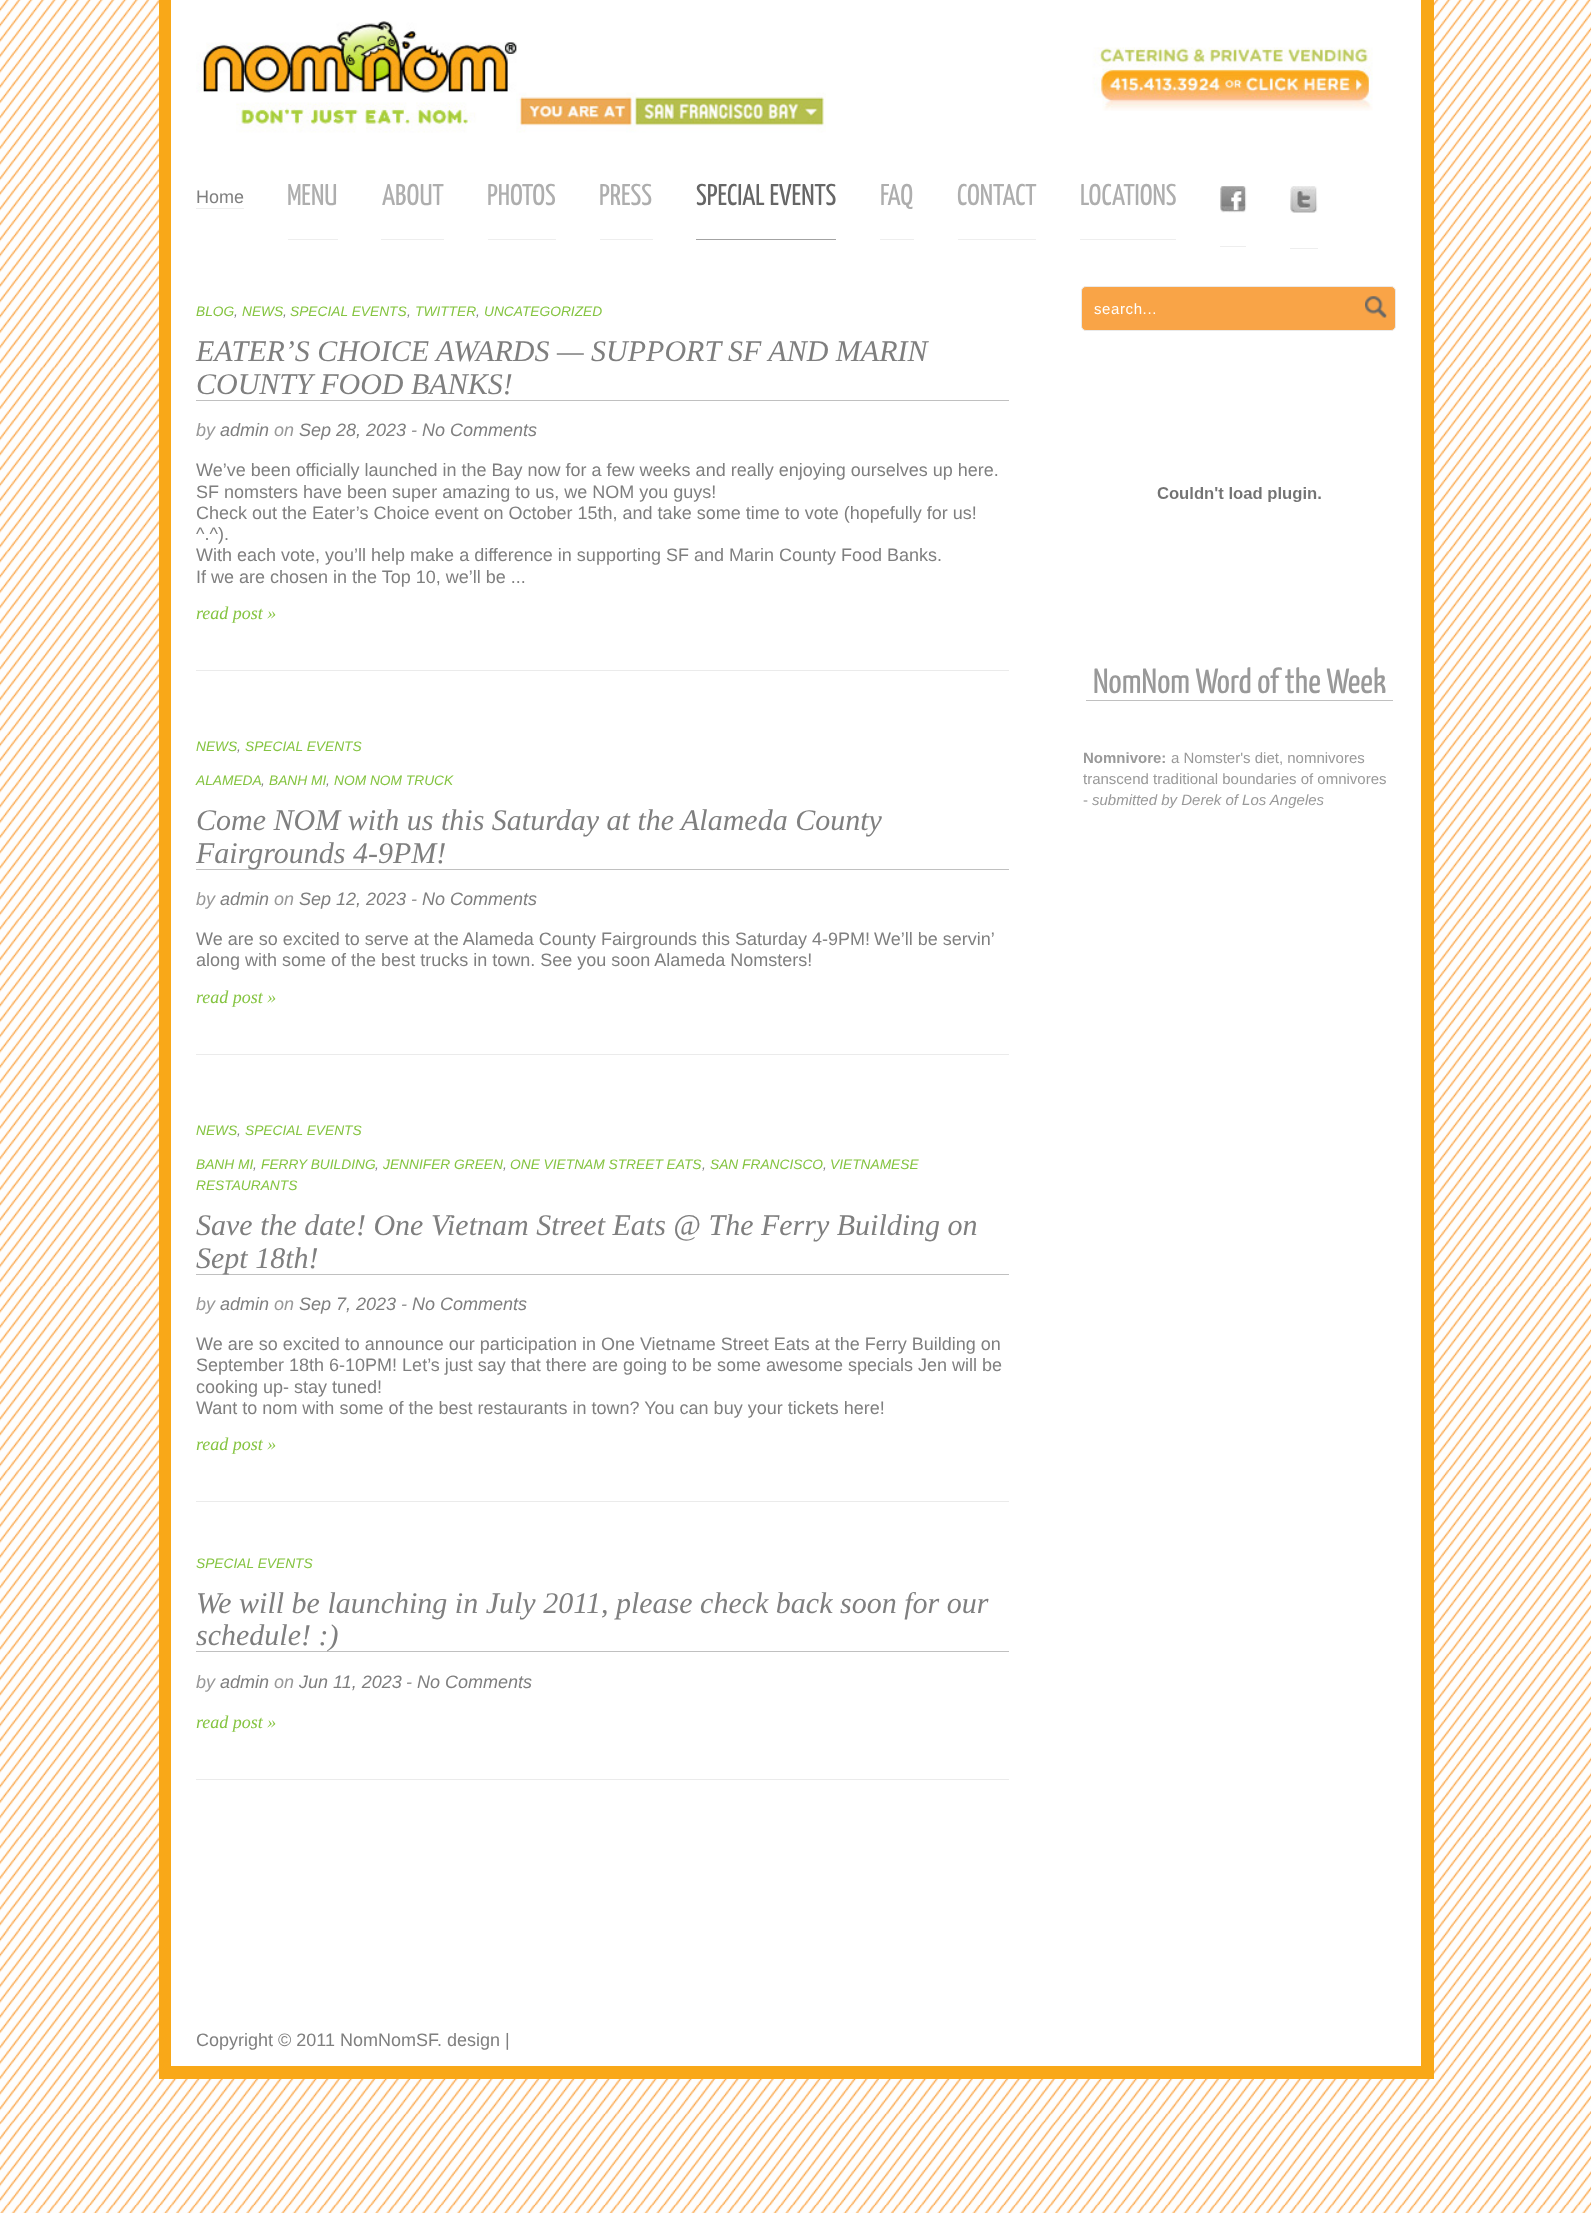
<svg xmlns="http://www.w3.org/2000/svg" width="1591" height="2213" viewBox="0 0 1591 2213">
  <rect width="100%" height="100%" fill="#fff"/>
  <image x="0" y="0" width="1591" height="2213" href="img/1.png"/>
  <path d="M171 0h1250v1930H171z" fill="#fff"/>
  <path d="M1421 0h13v1930H1421z" fill="#f9a818"/>
  <path d="M159 0h12v1930H159z" fill="#f9a818"/>
  <image x="196" y="21" width="630" height="112" href="img/2.png"/>
  <image x="1092" y="47" width="281" height="64" href="img/3.png"/>
  <path d="M196 208h48v1H196z" fill="#eee"/>
  <path d="M288 239h50v1H288z" fill="#eee"/>
  <path d="M381 239h63v1H381z" fill="#eee"/>
  <path d="M488 239h68v1H488z" fill="#eee"/>
  <path d="M600 239h53v1H600z" fill="#eee"/>
  <path d="M696 239h140v1H696z" fill="#a3a3a3"/>
  <path d="M880 239h34v1H880z" fill="#eee"/>
  <path d="M958 239h78v1H958z" fill="#eee"/>
  <path d="M1080 239h96v1H1080z" fill="#eee"/>
  <path d="M1220 246h26v1H1220z" fill="#eee"/>
  <image x="1220" y="186" width="27" height="27" href="img/4.png"/>
  <path d="M1290 248h28v1H1290z" fill="#eee"/>
  <image x="1290" y="186" width="28" height="27" href="img/5.png"/>
  <path d="M196 670h813v1H196z" fill="#ebebeb"/>
  <path d="M196 400h813v1H196z" fill="#c0c0c0"/>
  <path d="M196 1054h813v1H196z" fill="#ebebeb"/>
  <path d="M196 869h813v1H196z" fill="#c0c0c0"/>
  <path d="M196 1501h813v1H196z" fill="#ebebeb"/>
  <path d="M196 1274h813v1H196z" fill="#c0c0c0"/>
  <path d="M196 1779h813v1H196z" fill="#ebebeb"/>
  <path d="M196 1651h813v1H196z" fill="#c0c0c0"/>
  <rect x="1081.5" y="286.5" width="314" height="44" rx="4.5" fill="#f9a447" stroke="#eaeaea"/>
  <image x="1365" y="296" width="22" height="22" href="img/6.png"/>
  <image x="1157" y="487" width="164" height="15" href="img/7.png"/>
  <path d="M1086 700h307v1H1086z" fill="#c0c0c0"/>
  <image x="0" y="1930" width="1591" height="193" href="img/8.png"/>
  <path d="M171 1930h1250v136H171z" fill="#fff"/>
  <path d="M1421 1930h13v136H1421z" fill="#f9a818"/>
  <path d="M171 2066h1263v13H171z" fill="#f9a818"/>
  <path d="M159 1930h12v149H159z" fill="#f9a818"/>
  <text x="196" y="203" font-family="Liberation Sans" font-size="18" fill="#7f7f7f">Home</text>
  <g font-family="Yanone Kaffeesatz" font-size="30" font-weight="200" fill="#aeaeae">
    <text x="287" y="205">MENU</text>
    <text x="382" y="205">ABOUT</text>
    <text x="487" y="205">PHOTOS</text>
    <text x="599" y="205">PRESS</text>
  </g>
  <text x="696" y="205" font-family="Yanone Kaffeesatz" font-size="30" font-weight="200" fill="#666">SPECIAL EVENTS</text>
  <g font-family="Yanone Kaffeesatz" font-size="30" font-weight="200" fill="#aeaeae">
    <text x="880" y="205">FAQ</text>
    <text x="957" y="205">CONTACT</text>
    <text x="1080" y="205">LOCATIONS</text>
  </g>
  <text x="196" y="316" font-family="Liberation Sans" font-size="13.75" font-style="italic" fill="#85c441">BLOG</text>
  <text x="234" y="316" font-family="Liberation Sans" font-size="13.75" font-style="italic" fill="#7f7f7f">,</text>
  <text x="242" y="316" font-family="Liberation Sans" font-size="13.75" font-style="italic" fill="#85c441">NEWS</text>
  <text x="283" y="316" font-family="Liberation Sans" font-size="13.75" font-style="italic" fill="#7f7f7f">,</text>
  <text x="290" y="316" font-family="Liberation Sans" font-size="13.75" font-style="italic" fill="#85c441">SPECIAL EVENTS</text>
  <text x="407" y="316" font-family="Liberation Sans" font-size="13.75" font-style="italic" fill="#7f7f7f">,</text>
  <text x="415" y="316" font-family="Liberation Sans" font-size="13.75" font-style="italic" fill="#85c441">TWITTER</text>
  <text x="476" y="316" font-family="Liberation Sans" font-size="13.75" font-style="italic" fill="#7f7f7f">,</text>
  <text x="484" y="316" font-family="Liberation Sans" font-size="13.75" font-style="italic" fill="#85c441">UNCATEGORIZED</text>
  <g font-family="Liberation Serif" font-size="30" font-style="italic" fill="#7f7f7f">
    <text x="196" y="361">EATER’S CHOICE AWARDS — SUPPORT SF AND MARIN</text>
    <text x="196" y="394">COUNTY FOOD BANKS!</text>
  </g>
  <text x="196" y="436" font-family="Liberation Sans" font-size="18" font-style="italic" fill="#999">by</text>
  <text x="220" y="436" font-family="Liberation Sans" font-size="18" font-style="italic" fill="#7f7f7f">admin</text>
  <text x="274" y="436" font-family="Liberation Sans" font-size="18" font-style="italic" fill="#999">on</text>
  <text x="299" y="436" font-family="Liberation Sans" font-size="18" font-style="italic" fill="#7f7f7f">Sep 28, 2023</text>
  <text x="411" y="436" font-family="Liberation Sans" font-size="18" font-style="italic" fill="#999">-</text>
  <text x="422" y="436" font-family="Liberation Sans" font-size="18" font-style="italic" fill="#7f7f7f">No Comments</text>
  <g font-family="Liberation Sans" font-size="18" fill="#7f7f7f">
    <text x="196" y="476">We’ve been officially launched in the Bay now for a few weeks and really enjoying ourselves up here.</text>
    <text x="196" y="498">SF nomsters have been super amazing to us, we NOM you guys!</text>
    <text x="196" y="519">Check out the Eater’s Choice event on October 15th, and take some time to vote (hopefully for us!</text>
    <text x="196" y="540">^.^).</text>
    <text x="196" y="561">With each vote, you’ll help make a difference in supporting SF and Marin County Food Banks.</text>
    <text x="196" y="583">If we are chosen in the Top 10, we’ll be ...</text>
  </g>
  <text x="196" y="619" font-family="Liberation Serif" font-size="18" font-style="italic" fill="#85c441">read post »</text>
  <text x="196" y="751" font-family="Liberation Sans" font-size="13.75" font-style="italic" fill="#85c441">NEWS</text>
  <text x="237" y="751" font-family="Liberation Sans" font-size="13.75" font-style="italic" fill="#7f7f7f">,</text>
  <g font-family="Liberation Sans" font-size="13.75" font-style="italic" fill="#85c441">
    <text x="245" y="751">SPECIAL EVENTS</text>
    <text x="196" y="785">ALAMEDA</text>
  </g>
  <text x="261" y="785" font-family="Liberation Sans" font-size="13.75" font-style="italic" fill="#7f7f7f">,</text>
  <text x="269" y="785" font-family="Liberation Sans" font-size="13.75" font-style="italic" fill="#85c441">BANH MI</text>
  <text x="326" y="785" font-family="Liberation Sans" font-size="13.75" font-style="italic" fill="#7f7f7f">,</text>
  <text x="334" y="785" font-family="Liberation Sans" font-size="13.75" font-style="italic" fill="#85c441">NOM NOM TRUCK</text>
  <g font-family="Liberation Serif" font-size="30" font-style="italic" fill="#7f7f7f">
    <text x="196" y="830">Come NOM with us this Saturday at the Alameda County</text>
    <text x="196" y="863">Fairgrounds 4-9PM!</text>
  </g>
  <text x="196" y="905" font-family="Liberation Sans" font-size="18" font-style="italic" fill="#999">by</text>
  <text x="220" y="905" font-family="Liberation Sans" font-size="18" font-style="italic" fill="#7f7f7f">admin</text>
  <text x="274" y="905" font-family="Liberation Sans" font-size="18" font-style="italic" fill="#999">on</text>
  <text x="299" y="905" font-family="Liberation Sans" font-size="18" font-style="italic" fill="#7f7f7f">Sep 12, 2023</text>
  <text x="411" y="905" font-family="Liberation Sans" font-size="18" font-style="italic" fill="#999">-</text>
  <text x="422" y="905" font-family="Liberation Sans" font-size="18" font-style="italic" fill="#7f7f7f">No Comments</text>
  <g font-family="Liberation Sans" font-size="18" fill="#7f7f7f">
    <text x="196" y="945">We are so excited to serve at the Alameda County Fairgrounds this Saturday 4-9PM!</text>
    <text x="874" y="945">We’ll be servin’</text>
    <text x="196" y="966">along with some of the best trucks in town. See you soon Alameda Nomsters!</text>
  </g>
  <text x="196" y="1003" font-family="Liberation Serif" font-size="18" font-style="italic" fill="#85c441">read post »</text>
  <text x="196" y="1135" font-family="Liberation Sans" font-size="13.75" font-style="italic" fill="#85c441">NEWS</text>
  <text x="237" y="1135" font-family="Liberation Sans" font-size="13.75" font-style="italic" fill="#7f7f7f">,</text>
  <g font-family="Liberation Sans" font-size="13.75" font-style="italic" fill="#85c441">
    <text x="245" y="1135">SPECIAL EVENTS</text>
    <text x="196" y="1169">BANH MI</text>
  </g>
  <text x="253" y="1169" font-family="Liberation Sans" font-size="13.75" font-style="italic" fill="#7f7f7f">,</text>
  <text x="261" y="1169" font-family="Liberation Sans" font-size="13.75" font-style="italic" fill="#85c441">FERRY BUILDING</text>
  <text x="375" y="1169" font-family="Liberation Sans" font-size="13.75" font-style="italic" fill="#7f7f7f">,</text>
  <text x="383" y="1169" font-family="Liberation Sans" font-size="13.75" font-style="italic" fill="#85c441">JENNIFER GREEN</text>
  <text x="503" y="1169" font-family="Liberation Sans" font-size="13.75" font-style="italic" fill="#7f7f7f">,</text>
  <text x="510" y="1169" font-family="Liberation Sans" font-size="13.75" font-style="italic" fill="#85c441">ONE VIETNAM STREET EATS</text>
  <text x="702" y="1169" font-family="Liberation Sans" font-size="13.75" font-style="italic" fill="#7f7f7f">,</text>
  <text x="710" y="1169" font-family="Liberation Sans" font-size="13.75" font-style="italic" fill="#85c441">SAN FRANCISCO</text>
  <text x="823" y="1169" font-family="Liberation Sans" font-size="13.75" font-style="italic" fill="#7f7f7f">,</text>
  <g font-family="Liberation Sans" font-size="13.75" font-style="italic" fill="#85c441">
    <text x="830" y="1169">VIETNAMESE</text>
    <text x="196" y="1190">RESTAURANTS</text>
  </g>
  <g font-family="Liberation Serif" font-size="30" font-style="italic" fill="#7f7f7f">
    <text x="196" y="1235">Save the date! One Vietnam Street Eats @ The Ferry Building on</text>
    <text x="196" y="1268">Sept 18th!</text>
  </g>
  <text x="196" y="1310" font-family="Liberation Sans" font-size="18" font-style="italic" fill="#999">by</text>
  <text x="220" y="1310" font-family="Liberation Sans" font-size="18" font-style="italic" fill="#7f7f7f">admin</text>
  <text x="274" y="1310" font-family="Liberation Sans" font-size="18" font-style="italic" fill="#999">on</text>
  <text x="299" y="1310" font-family="Liberation Sans" font-size="18" font-style="italic" fill="#7f7f7f">Sep 7, 2023</text>
  <text x="401" y="1310" font-family="Liberation Sans" font-size="18" font-style="italic" fill="#999">-</text>
  <text x="412" y="1310" font-family="Liberation Sans" font-size="18" font-style="italic" fill="#7f7f7f">No Comments</text>
  <g font-family="Liberation Sans" font-size="18" fill="#7f7f7f">
    <text x="196" y="1350">We are so excited to announce our participation in One Vietname Street Eats at the Ferry Building on</text>
    <text x="196" y="1371">September 18th 6-10PM! Let’s just say that there are going to be some awesome specials Jen will be</text>
    <text x="196" y="1393">cooking up- stay tuned!</text>
    <text x="196" y="1414">Want to nom with some of the best restaurants in town? You can buy your tickets here!</text>
  </g>
  <text x="196" y="1450" font-family="Liberation Serif" font-size="18" font-style="italic" fill="#85c441">read post »</text>
  <text x="196" y="1568" font-family="Liberation Sans" font-size="13.75" font-style="italic" fill="#85c441">SPECIAL EVENTS</text>
  <g font-family="Liberation Serif" font-size="30" font-style="italic" fill="#7f7f7f">
    <text x="196" y="1613">We will be launching in July 2011, please check back soon for our</text>
    <text x="196" y="1645">schedule! :)</text>
  </g>
  <text x="196" y="1688" font-family="Liberation Sans" font-size="18" font-style="italic" fill="#999">by</text>
  <text x="220" y="1688" font-family="Liberation Sans" font-size="18" font-style="italic" fill="#7f7f7f">admin</text>
  <text x="274" y="1688" font-family="Liberation Sans" font-size="18" font-style="italic" fill="#999">on</text>
  <text x="299" y="1688" font-family="Liberation Sans" font-size="18" font-style="italic" fill="#7f7f7f">Jun 11, 2023</text>
  <text x="406" y="1688" font-family="Liberation Sans" font-size="18" font-style="italic" fill="#999">-</text>
  <text x="417" y="1688" font-family="Liberation Sans" font-size="18" font-style="italic" fill="#7f7f7f">No Comments</text>
  <text x="196" y="1728" font-family="Liberation Serif" font-size="18" font-style="italic" fill="#85c441">read post »</text>
  <text x="1094" y="314" font-family="Liberation Sans" font-size="15" letter-spacing="0.6" fill="#fff">search...</text>
  <text x="1093" y="693" font-family="Yanone Kaffeesatz" font-size="35" font-weight="200" fill="#999">NomNom Word of the Week</text>
  <text x="1083" y="763" font-family="Liberation Sans" font-size="15" font-weight="bold" fill="#999">Nomnivore:</text>
  <g font-family="Liberation Sans" font-size="15" fill="#999">
    <text x="1171" y="763">a Nomster's diet, nomnivores</text>
    <text x="1083" y="784">transcend traditional boundaries of omnivores</text>
    <text x="1083" y="805">-</text>
  </g>
  <text x="1092" y="805" font-family="Liberation Sans" font-size="15" font-style="italic" fill="#999">submitted by Derek of Los Angeles</text>
  <text x="196" y="2046" font-family="Liberation Sans" font-size="18" fill="#7f7f7f">Copyright © 2011 NomNomSF. design |</text>
</svg>
